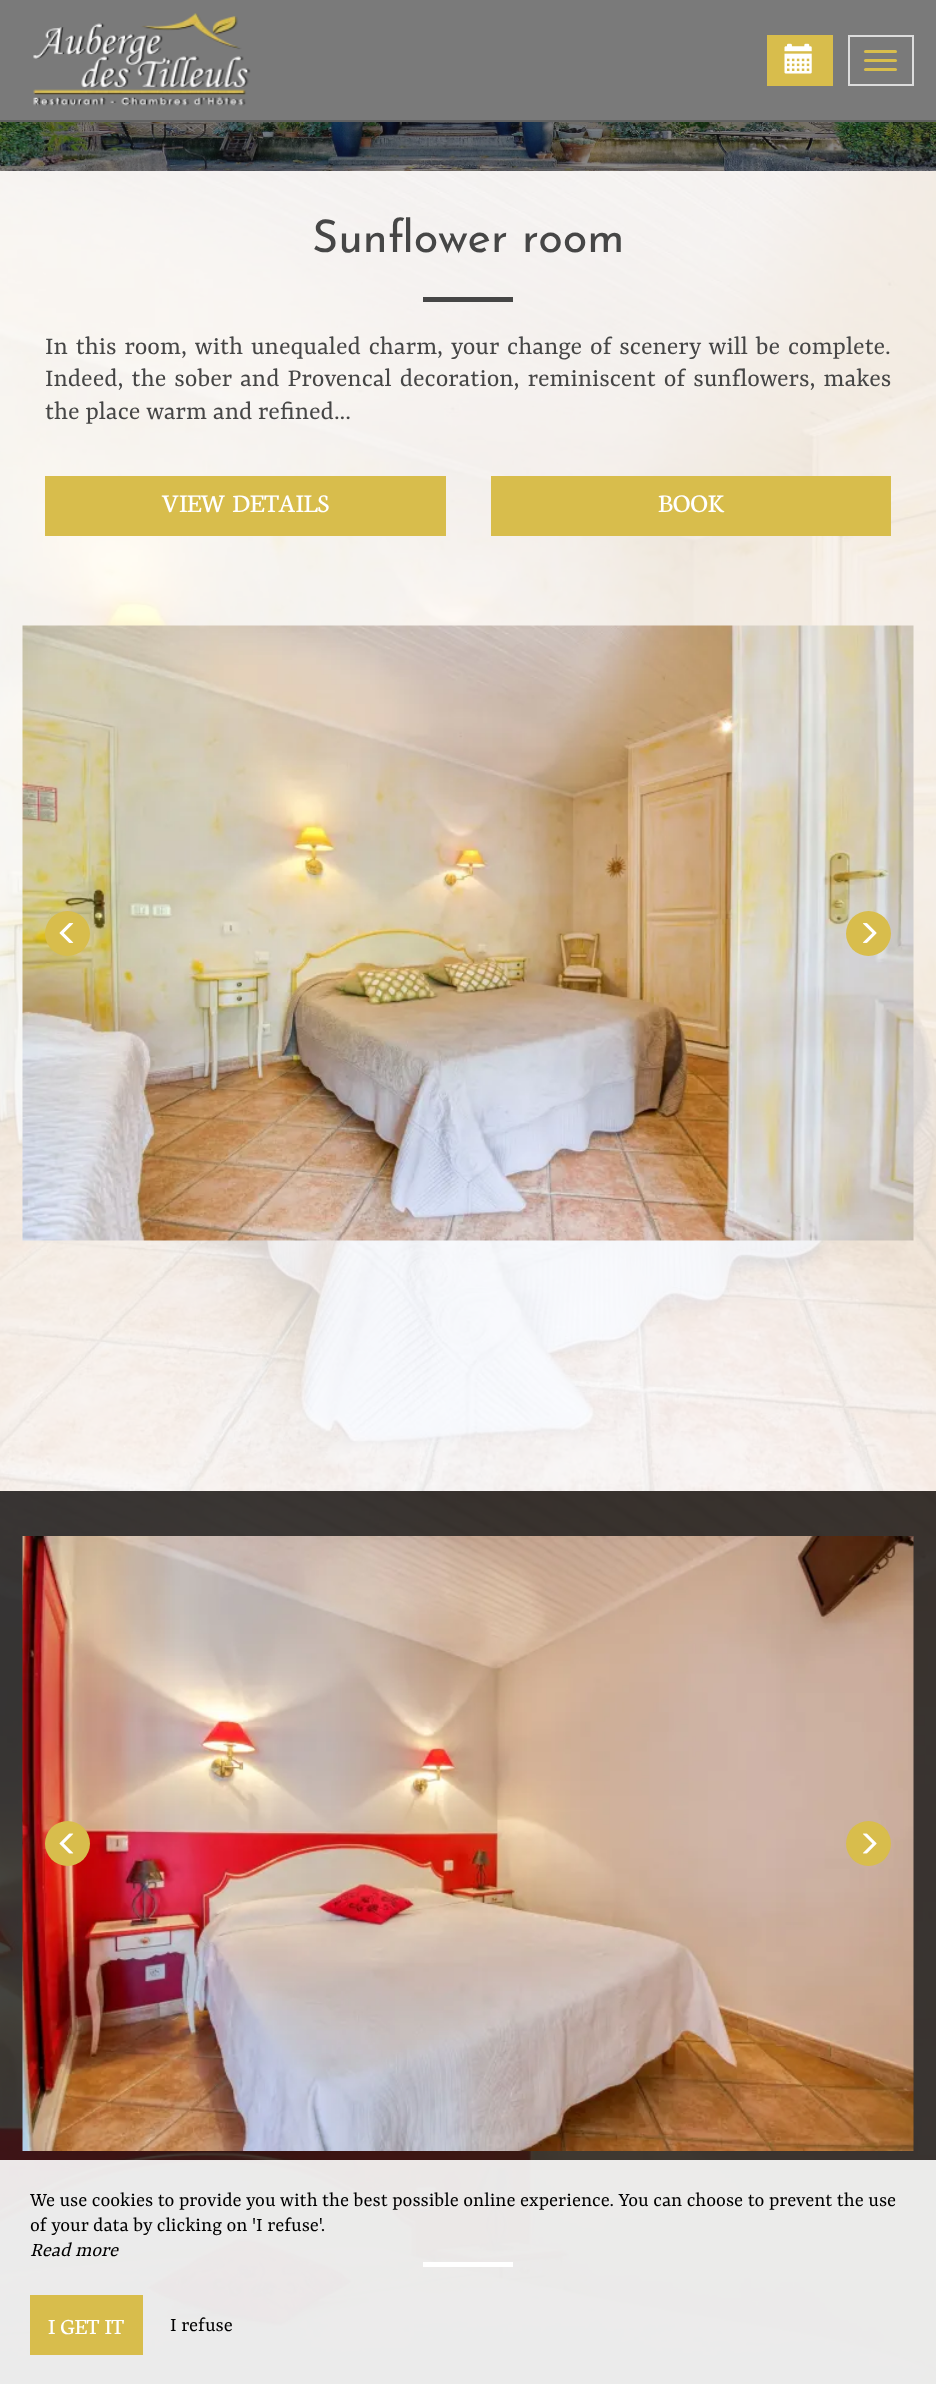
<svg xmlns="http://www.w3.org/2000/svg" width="936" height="2384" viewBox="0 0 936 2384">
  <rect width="100%" height="100%" fill="#fff"/>
  <path d="M0 0h936v120H0z" fill="#7a7a7a"/>
  <path d="M0 120h936v2H0z" fill="#616161"/>
  <image x="33" y="13" width="218" height="93" href="img/1.png"/>
  <path d="M767 35h66v51H767z" fill="#d8bd4c"/>
  <image x="784" y="43" width="28" height="31" href="img/2.png"/>
  <path d="M849 36h64v49H849z" fill="none" stroke="#ddd" stroke-width="2"/>
  <rect x="864" y="50" width="33" height="3" rx="1.5" fill="#d8bd4c"/>
  <rect x="864" y="59" width="33" height="3" rx="1.5" fill="#d8bd4c"/>
  <rect x="864" y="68" width="33" height="3" rx="1.5" fill="#d8bd4c"/>
  <image x="0" y="122" width="936" height="49" href="img/3.png"/>
  <image x="0" y="171" width="936" height="1320" href="img/4.png"/>
  <path d="M423 297h90v5H423z" fill="#464646"/>
  <path d="M45 476h401v60H45z" fill="#d8bd4c"/>
  <path d="M491 476h400v60H491z" fill="#d8bd4c"/>
  <image x="22" y="625" width="892" height="616" href="img/5.png"/>
  <circle cx="67.5" cy="933.5" r="22.5" fill="#d8bd4c"/>
  <image x="59" y="923" width="15" height="20" href="img/6.png"/>
  <circle cx="868.5" cy="933.5" r="22.5" fill="#d8bd4c"/>
  <image x="863" y="923" width="14" height="20" href="img/7.png"/>
  <image x="0" y="1491" width="936" height="893" href="img/8.png"/>
  <image x="22" y="1536" width="892" height="615" href="img/9.png"/>
  <circle cx="67.5" cy="1843.5" r="22.5" fill="#d8bd4c"/>
  <image x="59" y="1833" width="15" height="21" href="img/10.png"/>
  <circle cx="868.5" cy="1843.5" r="22.5" fill="#d8bd4c"/>
  <image x="863" y="1833" width="14" height="21" href="img/11.png"/>
  <path d="M423 2262h90v5H423z" fill="#fff"/>
  <path d="M0 2160h936v224H0z" fill="#ffffffe6"/>
  <path d="M30 2295h113v60H30z" fill="#d8bd4c"/>
  <text x="312" y="252" font-family="Josefin Sans" font-size="45" fill="#464646">Sunflower room</text>
  <g font-family="Yrsa" font-size="27" fill="#464646">
    <text x="45" y="354" word-spacing="2.1">In this room, with unequaled charm, your change of scenery will be complete.</text>
    <text x="45" y="386" word-spacing="2.25">Indeed, the sober and Provencal decoration, reminiscent of sunflowers, makes</text>
    <text x="45" y="419">the place warm and refined...</text>
  </g>
  <g font-family="Neuton" font-size="27" fill="#fff">
    <text x="162" y="512" word-spacing="3">VIEW DETAILS</text>
    <text x="658" y="512">BOOK</text>
  </g>
  <g font-family="Yrsa" font-size="21" fill="#000">
    <text x="30" y="2206">We use cookies to provide you with the best possible online experience. You can choose to prevent the use</text>
    <text x="30" y="2231">of your data by clicking on 'I refuse'.</text>
  </g>
  <text x="30" y="2256" font-family="Yrsa" font-size="21" font-style="italic" fill="#000">Read more</text>
  <text x="48" y="2334" word-spacing="2" font-family="Neuton" font-size="23" fill="#fff">I GET IT</text>
  <text x="170" y="2331" font-family="Yrsa" font-size="21" fill="#000">I refuse</text>
</svg>
